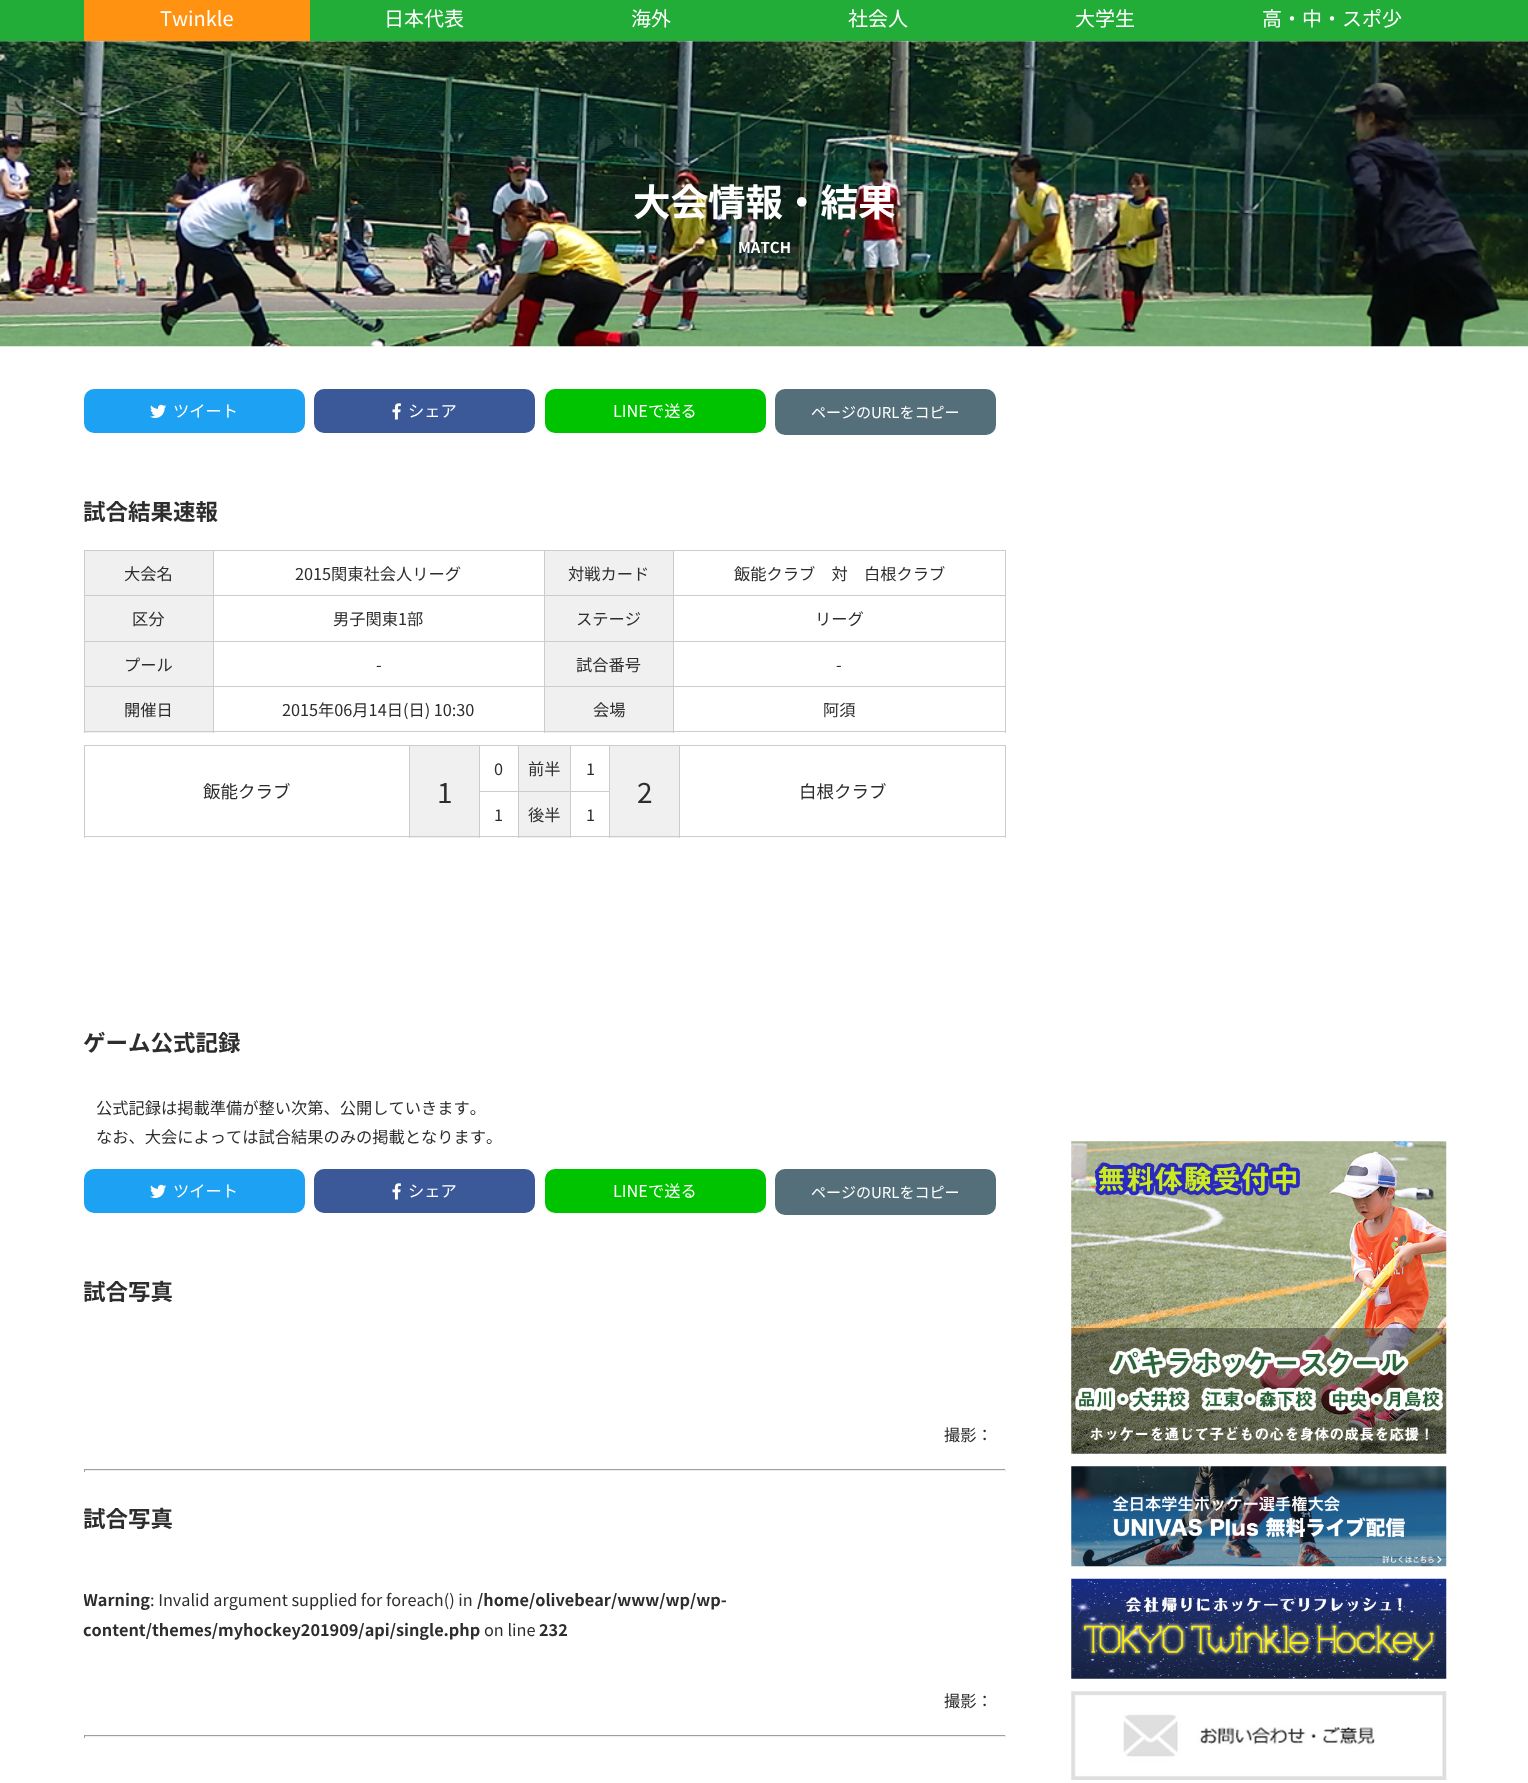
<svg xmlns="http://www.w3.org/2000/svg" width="1528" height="1783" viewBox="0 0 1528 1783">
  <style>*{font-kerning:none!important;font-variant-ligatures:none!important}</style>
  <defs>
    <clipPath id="clip1"><path d="M84 384h922v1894H84z"/></clipPath>
  </defs>
  <rect width="100%" height="100%" fill="#fff"/>
  <path d="M0 0h1528v41H0z" fill="#22ac38"/>
  <path d="M84 0h226v41H84z" fill="#ff9311"/>
  <image x="0" y="41" width="1528" height="306" href="img/1.png"/>
  <rect x="84" y="389" width="221" height="44" rx="10" fill="#1da1f2"/>
  <image x="150" y="404" width="17" height="14" href="img/2.png"/>
  <rect x="314" y="389" width="221" height="44" rx="10" fill="#3b5998"/>
  <image x="392" y="403" width="9" height="17" href="img/3.png"/>
  <rect x="545" y="389" width="221" height="44" rx="10" fill="#00c300"/>
  <rect x="775" y="389" width="221" height="46" rx="10" fill="#546e7a"/>
  <path d="M84 550h922v1H84z" fill="#ccc"/>
  <path d="M1005 550h1v183H1005z" fill="#ccc"/>
  <path d="M85 687h128v46H85z" fill="#f0f0f0"/>
  <path d="M545 687h128v46H545z" fill="#f0f0f0"/>
  <path d="M84 731h922v1H84z" fill="#ccc"/>
  <path d="M84 550h1v183H84z" fill="#ccc"/>
  <path d="M85 551h128v44H85z" fill="#f0f0f0"/>
  <path d="M673 595h333v1H673z" fill="#ccc"/>
  <path d="M673 641h333v1H673z" fill="#ccc"/>
  <path d="M673 686h333v1H673z" fill="#ccc"/>
  <path d="M673 686h1v47H673z" fill="#ccc"/>
  <path d="M544 686h130v1H544z" fill="#ccc"/>
  <path d="M673 641h1v47H673z" fill="#ccc"/>
  <path d="M544 641h130v1H544z" fill="#ccc"/>
  <path d="M673 595h1v48H673z" fill="#ccc"/>
  <path d="M544 595h130v1H544z" fill="#ccc"/>
  <path d="M544 686h1v47H544z" fill="#ccc"/>
  <path d="M213 686h332v1H213z" fill="#ccc"/>
  <path d="M544 641h1v47H544z" fill="#ccc"/>
  <path d="M213 641h332v1H213z" fill="#ccc"/>
  <path d="M544 595h1v48H544z" fill="#ccc"/>
  <path d="M213 595h332v1H213z" fill="#ccc"/>
  <path d="M213 686h1v47H213z" fill="#ccc"/>
  <path d="M84 686h130v1H84z" fill="#ccc"/>
  <path d="M213 641h1v47H213z" fill="#ccc"/>
  <path d="M84 641h130v1H84z" fill="#ccc"/>
  <path d="M213 595h1v48H213z" fill="#ccc"/>
  <path d="M84 595h130v1H84z" fill="#ccc"/>
  <path d="M213 550h1v46H213z" fill="#ccc"/>
  <path d="M545 551h128v44H545z" fill="#f0f0f0"/>
  <path d="M544 550h1v46H544z" fill="#ccc"/>
  <path d="M673 550h1v46H673z" fill="#ccc"/>
  <path d="M85 596h128v45H85z" fill="#f0f0f0"/>
  <path d="M545 596h128v45H545z" fill="#f0f0f0"/>
  <path d="M85 642h128v44H85z" fill="#f0f0f0"/>
  <path d="M545 642h128v44H545z" fill="#f0f0f0"/>
  <path d="M679 745h327v1H679z" fill="#ccc"/>
  <path d="M1005 745h1v93H1005z" fill="#ccc"/>
  <path d="M679 836h327v1H679z" fill="#ccc"/>
  <path d="M679 745h1v93H679z" fill="#ccc"/>
  <path d="M609 745h71v1H609z" fill="#ccc"/>
  <path d="M610 746h69v92H610z" fill="#f0f0f0"/>
  <path d="M570 836h40v1H570z" fill="#ccc"/>
  <path d="M609 836h71v1H609z" fill="#ccc"/>
  <path d="M570 791h40v1H570z" fill="#ccc"/>
  <path d="M609 745h1v93H609z" fill="#ccc"/>
  <path d="M570 745h40v1H570z" fill="#ccc"/>
  <path d="M570 791h1v47H570z" fill="#ccc"/>
  <path d="M518 791h53v1H518z" fill="#ccc"/>
  <path d="M570 745h1v48H570z" fill="#ccc"/>
  <path d="M518 745h53v1H518z" fill="#ccc"/>
  <path d="M519 792h51v46H519z" fill="#f0f0f0"/>
  <path d="M518 836h53v1H518z" fill="#ccc"/>
  <path d="M518 791h1v47H518z" fill="#ccc"/>
  <path d="M479 791h40v1H479z" fill="#ccc"/>
  <path d="M518 745h1v48H518z" fill="#ccc"/>
  <path d="M479 745h40v1H479z" fill="#ccc"/>
  <path d="M479 836h40v1H479z" fill="#ccc"/>
  <path d="M479 791h1v47H479z" fill="#ccc"/>
  <path d="M479 745h1v48H479z" fill="#ccc"/>
  <path d="M519 746h51v45H519z" fill="#f0f0f0"/>
  <path d="M409 745h71v1H409z" fill="#ccc"/>
  <path d="M410 746h69v92H410z" fill="#f0f0f0"/>
  <path d="M409 836h71v1H409z" fill="#ccc"/>
  <path d="M409 745h1v93H409z" fill="#ccc"/>
  <path d="M84 745h326v1H84z" fill="#ccc"/>
  <path d="M84 836h326v1H84z" fill="#ccc"/>
  <path d="M84 745h1v93H84z" fill="#ccc"/>
  <rect x="84" y="1169" width="221" height="44" rx="10" fill="#1da1f2"/>
  <image x="150" y="1184" width="17" height="14" href="img/2.png"/>
  <rect x="314" y="1169" width="221" height="44" rx="10" fill="#3b5998"/>
  <image x="392" y="1183" width="9" height="17" href="img/3.png"/>
  <rect x="545" y="1169" width="221" height="44" rx="10" fill="#00c300"/>
  <rect x="775" y="1169" width="221" height="46" rx="10" fill="#546e7a"/>
  <path d="M84 1469h922v1H84z" fill="#9f9f9f"/>
  <path d="M1005 1469h1v3H1005z" fill="#eee"/>
  <path d="M84 1470h922v1H84z" fill="#eee"/>
  <path d="M84 1469h1v3H84z" fill="#9f9f9f"/>
  <path d="M84 1735h922v1H84z" fill="#9f9f9f"/>
  <path d="M1005 1735h1v3H1005z" fill="#eee"/>
  <path d="M84 1736h922v1H84z" fill="#eee"/>
  <path d="M84 1735h1v3H84z" fill="#9f9f9f"/>
  <image x="1071" y="1141" width="376" height="313" href="img/4.png"/>
  <image x="1071" y="1466" width="376" height="101" href="img/5.png"/>
  <image x="1071" y="1578" width="376" height="101" href="img/6.png"/>
  <image x="1071" y="1691" width="376" height="89" href="img/7.png"/>
  <g font-family="Noto Sans JP" font-size="20" fill="#fff">
    <text x="160" y="26">Twinkle</text>
    <text x="384" y="26">日本代表</text>
    <text x="631" y="26">海外</text>
    <text x="848" y="26">社会人</text>
    <text x="1075" y="26">大学生</text>
    <text x="1262" y="26">高・中・スポ少</text>
  </g>
  <text x="633" y="216" font-family="Noto Sans JP" font-size="37.5" font-weight="bold" fill="#fff">大会情報・結果</text>
  <text x="738" y="253" font-family="Noto Sans JP" font-size="15" font-weight="bold" fill="#fff">MATCH</text>
  <g font-family="Noto Sans JP" font-size="16.25" fill="#fff">
    <text x="173" y="417">ツイート</text>
    <text x="408" y="417">シェア</text>
    <text x="613" y="417">LINEで送る</text>
  </g>
  <text x="811" y="418" font-family="Noto Sans JP" font-size="15" fill="#fff">ページのURLをコピー</text>
  <g clip-path="url(#clip1)">
    <text x="83" y="520" font-family="Noto Sans JP" font-size="22.5" font-weight="bold" fill="#2d2d2d">試合結果速報</text>
  </g>
  <g font-family="Noto Sans JP" font-size="16.25" fill="#2d2d2d">
    <text x="124" y="580">大会名</text>
    <text x="295" y="580">2015関東社会人リーグ</text>
    <text x="568" y="580">対戦カード</text>
    <text x="734" y="580">飯能クラブ　対　白根クラブ</text>
    <text x="132" y="625">区分</text>
    <text x="333" y="625">男子関東1部</text>
    <text x="576" y="625">ステージ</text>
    <text x="815" y="625">リーグ</text>
    <text x="124" y="671">プール</text>
    <text x="376" y="671">-</text>
    <text x="576" y="671">試合番号</text>
    <text x="836" y="671">-</text>
    <text x="124" y="716">開催日</text>
    <text x="282" y="716">2015年06月14日(日) 10:30</text>
    <text x="593" y="716">会場</text>
    <text x="823" y="716">阿須</text>
    <text x="494" y="775">0</text>
    <text x="528" y="775">前半</text>
    <text x="586" y="775">1</text>
  </g>
  <text x="203" y="798" font-family="Noto Sans JP" font-size="17.5" fill="#2d2d2d">飯能クラブ</text>
  <g font-family="Noto Sans JP" font-size="28" fill="#2d2d2d">
    <text x="437" y="803">1</text>
    <text x="637" y="803">2</text>
  </g>
  <text x="799" y="798" font-family="Noto Sans JP" font-size="17.5" fill="#2d2d2d">白根クラブ</text>
  <g font-family="Noto Sans JP" font-size="16.25" fill="#2d2d2d">
    <text x="494" y="821">1</text>
    <text x="528" y="821">後半</text>
    <text x="586" y="821">1</text>
  </g>
  <text x="83" y="1051" font-family="Noto Sans JP" font-size="22.5" font-weight="bold" fill="#2d2d2d">ゲーム公式記録</text>
  <g font-family="Noto Sans JP" font-size="16.25" fill="#2d2d2d">
    <text x="96" y="1114">公式記録は掲載準備が整い次第、公開していきます。</text>
    <text x="96" y="1143">なお、大会によっては試合結果のみの掲載となります。</text>
  </g>
  <g font-family="Noto Sans JP" font-size="16.25" fill="#fff">
    <text x="173" y="1197">ツイート</text>
    <text x="408" y="1197">シェア</text>
    <text x="613" y="1197">LINEで送る</text>
  </g>
  <text x="811" y="1198" font-family="Noto Sans JP" font-size="15" fill="#fff">ページのURLをコピー</text>
  <g clip-path="url(#clip1)">
    <text x="83" y="1300" font-family="Noto Sans JP" font-size="22.5" font-weight="bold" fill="#2d2d2d">試合写真</text>
  </g>
  <text x="944" y="1441" font-family="Noto Sans JP" font-size="16.25" fill="#2d2d2d">撮影：</text>
  <g clip-path="url(#clip1)">
    <text x="83" y="1527" font-family="Noto Sans JP" font-size="22.5" font-weight="bold" fill="#2d2d2d">試合写真</text>
    <text x="83" y="1606" font-family="Noto Sans JP" font-size="16.25" font-weight="bold" fill="#2d2d2d">Warning</text>
  </g>
  <text x="150" y="1606" font-family="Noto Sans JP" font-size="16.25" fill="#2d2d2d">: Invalid argument supplied for foreach() in</text>
  <g font-family="Noto Sans JP" font-size="16.25" font-weight="bold" fill="#2d2d2d">
    <text x="477" y="1606">/home/olivebear/www/wp/wp-</text>
    <text x="83" y="1636">content/themes/myhockey201909/api/single.php</text>
  </g>
  <text x="484" y="1636" font-family="Noto Sans JP" font-size="16.25" fill="#2d2d2d">on line</text>
  <text x="539" y="1636" font-family="Noto Sans JP" font-size="16.25" font-weight="bold" fill="#2d2d2d">232</text>
  <text x="944" y="1707" font-family="Noto Sans JP" font-size="16.25" fill="#2d2d2d">撮影：</text>
</svg>
